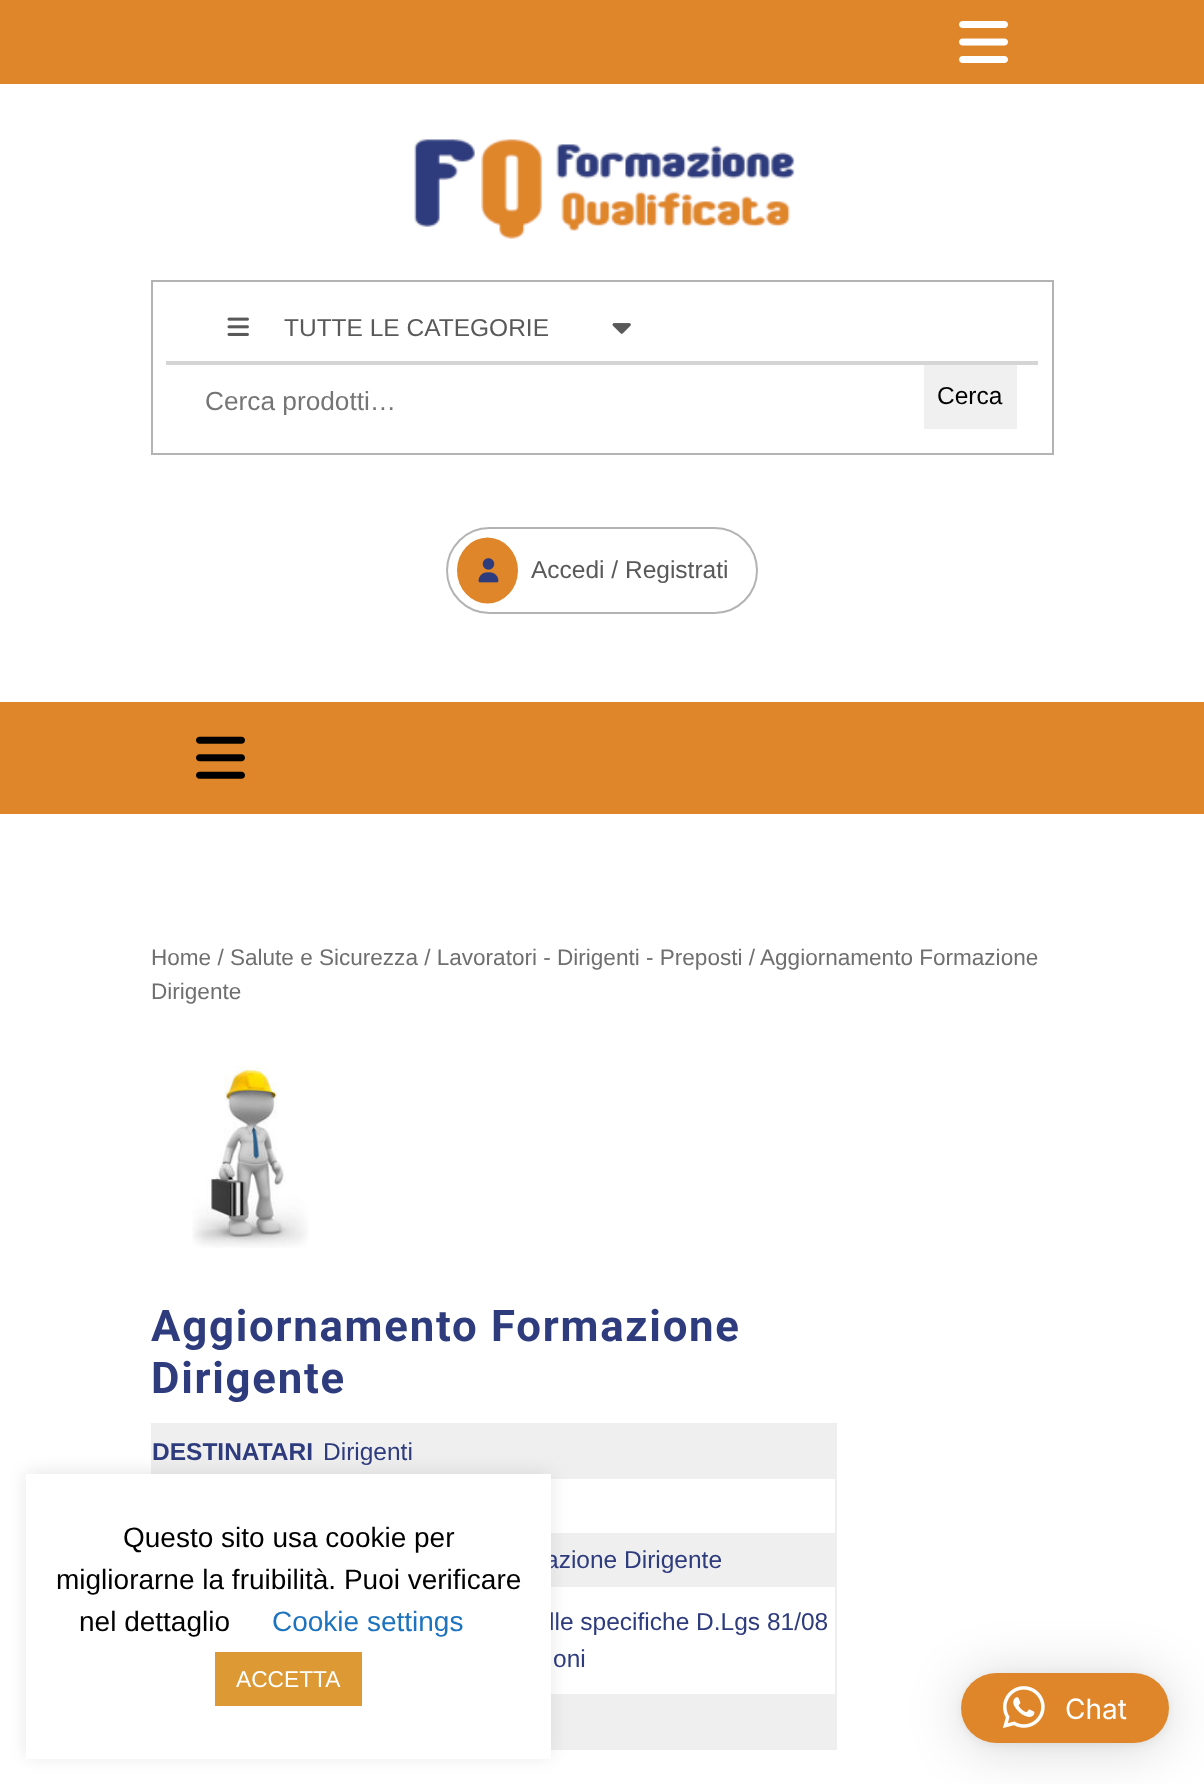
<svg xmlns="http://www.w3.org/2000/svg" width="1204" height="1784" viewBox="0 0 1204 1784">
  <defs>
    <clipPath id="clip1"><path d="M205 385h537v30H205z"/></clipPath>
  </defs>
  <rect width="100%" height="100%" fill="#fff"/>
  <path d="M0 0h1204v84H0z" fill="#df862b"/>
  <image x="959" y="21" width="49" height="42" href="img/1.png"/>
  <image x="414" y="139" width="381" height="100" href="img/2.png"/>
  <path d="M152 281h901v173H152z" fill="none" stroke="#b3b3b3" stroke-width="2"/>
  <path d="M166 361h872v4H166z" fill="#d5d5d5"/>
  <image x="227" y="317" width="22" height="19" href="img/3.png"/>
  <image x="612" y="323" width="19" height="11" href="img/4.png"/>
  <path d="M924 365h93v64H924z" fill="#f0f0f0"/>
  <rect x="447" y="528" width="310" height="85" rx="42.5" fill="none" stroke="#b3b3b3" stroke-width="2"/>
  <ellipse cx="487.5" cy="570.5" rx="30.5" ry="33" fill="#df862b"/>
  <image x="478" y="558" width="21" height="25" href="img/5.png"/>
  <path d="M0 702h1204v112H0z" fill="#df862b"/>
  <image x="196" y="736" width="49" height="43" href="img/6.png"/>
  <image x="192" y="1066" width="117" height="182" href="img/7.png"/>
  <path d="M152 1424h684v325H152z" fill="none" stroke="#eee" stroke-width="2"/>
  <path d="M153 1425h171v49H153z" fill="#efefef"/>
  <path d="M324 1425h511v54H324z" fill="#efefef"/>
  <path d="M551 1533h284v54H551z" fill="#efefef"/>
  <path d="M551 1694h284v54H551z" fill="#efefef"/>
  <path d="M26 1472h525v285H26z" fill="#acabab4d" filter="blur(9px)"/>
  <rect x="961" y="1677" width="208" height="70" rx="35" fill="#00000029" filter="blur(28px)"/>
  <rect x="961" y="1675" width="208" height="70" rx="35" fill="#0000000f" filter="blur(5px)"/>
  <rect x="961" y="1673" width="208" height="70" rx="35" fill="#df862b"/>
  <image x="1003" y="1686" width="42" height="42" href="img/8.png"/>
  <text x="284" y="336" font-family="Liberation Sans" font-size="24.5" fill="#595959">TUTTE LE CATEGORIE</text>
  <g clip-path="url(#clip1)">
    <text x="205" y="410" font-family="Liberation Sans" font-size="26.25" fill="#757575">Cerca prodotti…</text>
  </g>
  <text x="937" y="404" font-family="Liberation Sans" font-size="24.5" fill="#000">Cerca</text>
  <text x="531" y="578" font-family="Liberation Sans" font-size="24.5" fill="#595959">Accedi / Registrati</text>
  <g font-family="Liberation Sans" font-size="22.55" fill="#6f6f6f">
    <text x="151" y="965">Home / Salute e Sicurezza / Lavoratori - Dirigenti - Preposti / Aggiornamento Formazione</text>
    <text x="151" y="999">Dirigente</text>
  </g>
  <g font-family="Roboto" font-size="43.75" font-weight="bold" letter-spacing="1.75" fill="#2e3c7e">
    <text x="151" y="1341">Aggiornamento Formazione</text>
    <text x="151" y="1393">Dirigente</text>
  </g>
  <text x="152" y="1460" font-family="Liberation Sans" font-size="24.5" font-weight="bold" fill="#2e3c7e">DESTINATARI</text>
  <g font-family="Liberation Sans" font-size="24.5" fill="#2e3c7e">
    <text x="323" y="1460">Dirigenti</text>
    <text x="545" y="1568">azione Dirigente</text>
    <text x="549" y="1630">lle specifiche D.Lgs 81/08</text>
    <text x="553" y="1667">oni</text>
  </g>
  <path d="M26 1474h525v285H26z" fill="#fff"/>
  <g font-family="Liberation Sans" font-size="28" fill="#000">
    <text x="123" y="1547">Questo sito usa cookie per</text>
    <text x="56" y="1589">migliorarne la fruibilità. Puoi verificare</text>
    <text x="79" y="1631">nel dettaglio</text>
  </g>
  <text x="272" y="1631" font-family="Liberation Sans" font-size="28" fill="#1e73be">Cookie settings</text>
  <path d="M215 1652h147v54H215z" fill="#d93"/>
  <text x="236" y="1687" font-family="Liberation Sans" font-size="22.75" fill="#fff">ACCETTA</text>
  <text x="1065" y="1719" font-family="Inter" font-size="28" fill="#fff">Chat</text>
</svg>
